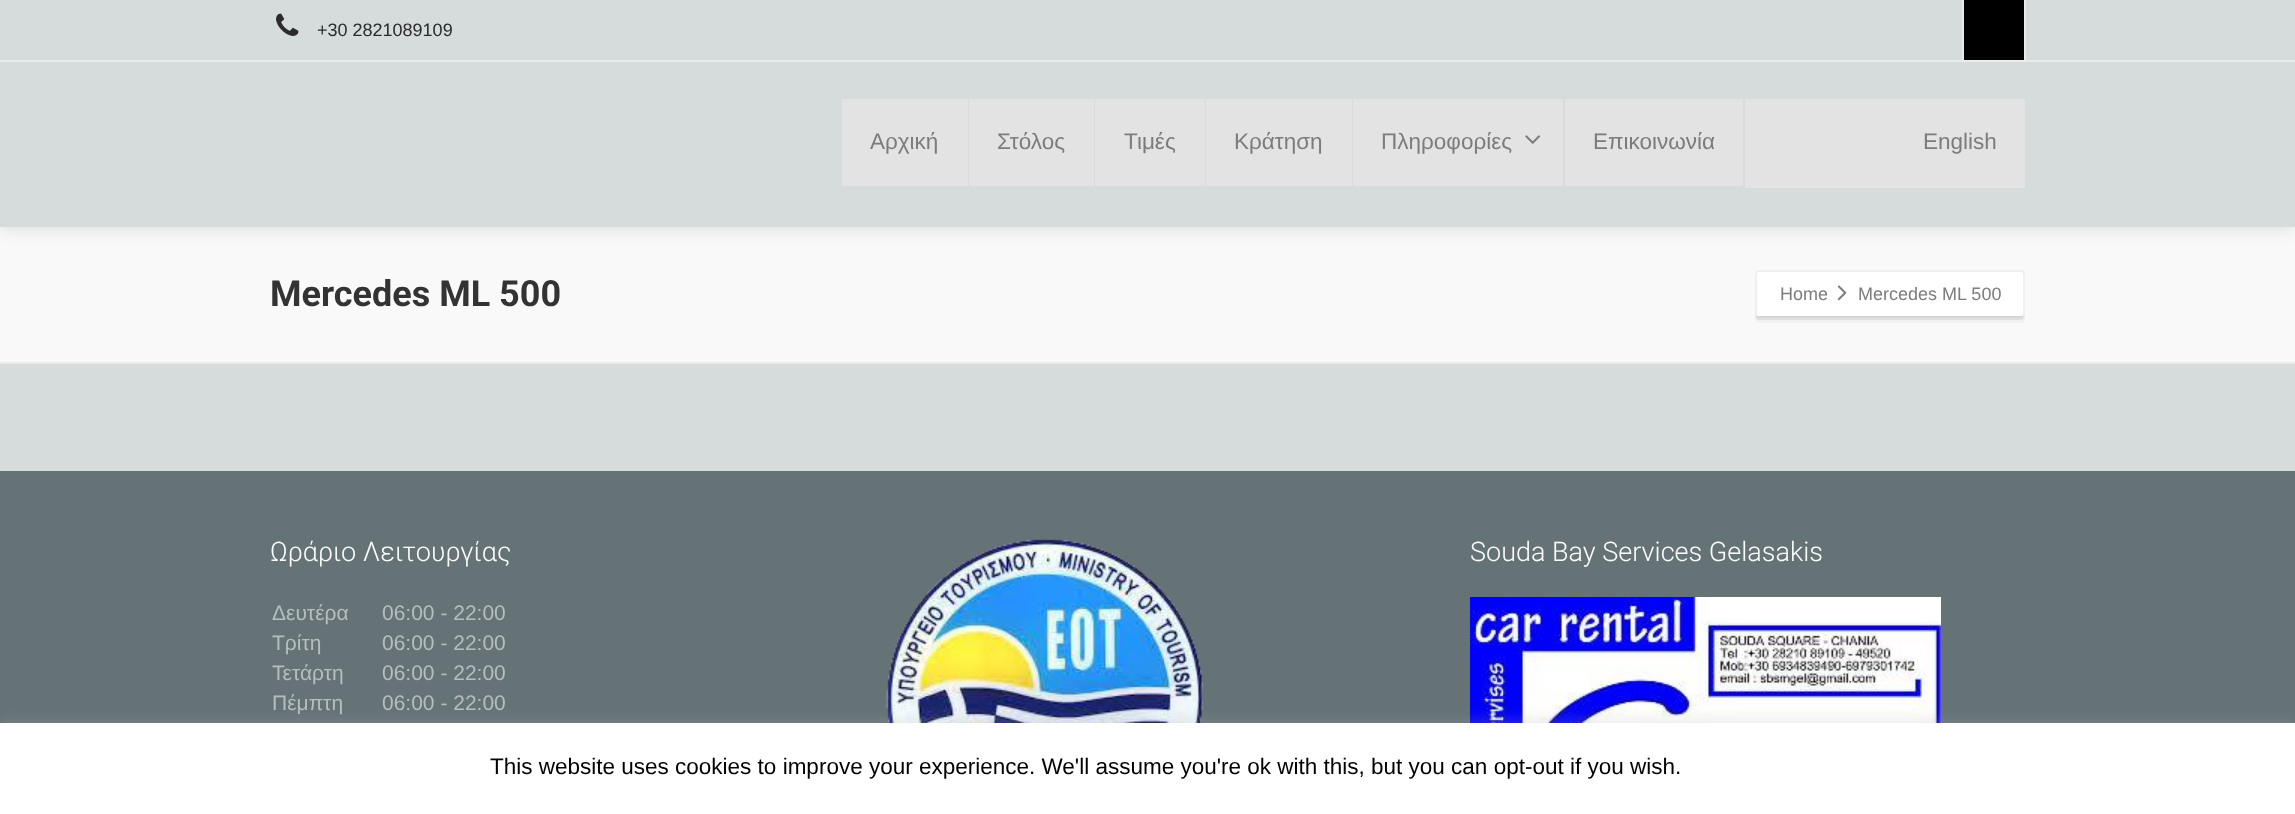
<svg xmlns="http://www.w3.org/2000/svg" width="2295" height="814" viewBox="0 0 2295 814">
  <rect width="100%" height="100%" fill="#d6dbdc"/>
  <path d="M0 227h2295v135H0z" fill="#f9f9f9"/>
  <path d="M0 3h2295v227H0z" fill="#0000001a" filter="blur(7.5px)"/>
  <path d="M0 60h2295v2H0z" fill="#ebebeb"/>
  <path d="M0 0h2295v60H0z" fill="#d6dbdc"/>
  <image x="276" y="13" width="23" height="23" href="img/1.png"/>
  <path d="M1964 0h60v60H1964z" fill="#000"/>
  <path d="M2024 0h2v60H2024z" fill="#ebebeb"/>
  <path d="M1962 0h2v60H1962z" fill="#ebebeb"/>
  <path d="M0 62h2295v165H0z" fill="#d6dbdc"/>
  <path d="M842 99h126v87H842z" fill="#e3e3e3"/>
  <path d="M969 99h125v87H969z" fill="#e3e3e3"/>
  <path d="M1095 99h110v87H1095z" fill="#e3e3e3"/>
  <path d="M1206 99h146v87H1206z" fill="#e3e3e3"/>
  <path d="M1353 99h210v87H1353z" fill="#e3e3e3"/>
  <image x="1525" y="135" width="16" height="9" href="img/2.png"/>
  <path d="M1565 99h178v87H1565z" fill="#e3e3e3"/>
  <path d="M1745 99h280v89H1745z" fill="#e3e3e3"/>
  <path d="M0 362h2295v2H0z" fill="#ebebeb"/>
  <path d="M1755 314V315C1755 318 1757 320 1760 320H2020C2023 320 2025 318 2025 315V314C2025 316 2023 318 2020 318H1760C1757 318 1755 316 1755 314Z" fill="#e8e8e8"/>
  <path d="M1755 314V318C1755 321 1757 323 1760 323H2020C2023 323 2025 321 2025 318V314C2025 316 2023 318 2020 318H1760C1757 318 1755 316 1755 314Z" fill="#00000008"/>
  <rect x="1755" y="270" width="270" height="48" rx="5" fill="#fff"/>
  <path d="M2023 316C2022.5 317 2021.5 317 2020.5 317H1759.5C1758.5 317 1757.5 317 1757 316" fill="none" stroke="#00000038" stroke-width="1.5"/>
  <path d="M1757 316C1756 315.5 1756 314.5 1756 313.5V274.5C1756 273.5 1756 272.5 1757 272C1757.5 271 1758.5 271 1759.5 271H2020.5C2021.5 271 2022.5 271 2023 272C2024 272.5 2024 273.5 2024 274.5V313.5C2024 314.5 2024 315.5 2023 316" fill="none" stroke="#ebebeb" stroke-width="1.5"/>
  <image x="1837" y="285" width="10" height="16" href="img/3.png"/>
  <path d="M0 471h2295v252H0z" fill="#657376"/>
  <image x="886" y="539" width="318" height="184" href="img/4.png"/>
  <image x="1470" y="597" width="471" height="126" href="img/5.png"/>
  <path d="M0 722h2295v91H0z" fill="#acabab4d" filter="blur(7.5px)"/>
  <path d="M0 723h2295v91H0z" fill="#fff"/>
  <text x="317" y="36" font-family="Liberation Sans" font-size="18" fill="#2b2b2b">+30 2821089109</text>
  <g font-family="Liberation Sans" font-size="22.5" fill="#7c7c7c">
    <text x="870" y="149">Αρχική</text>
    <text x="997" y="149">Στόλος</text>
    <text x="1124" y="149">Τιμές</text>
    <text x="1234" y="149">Κράτηση</text>
    <text x="1381" y="149">Πληροφορίες</text>
    <text x="1593" y="149">Επικοινωνία</text>
    <text x="1923" y="149">English</text>
  </g>
  <text x="270" y="306" font-family="Roboto" font-size="36" font-weight="bold" fill="#333">Mercedes ML 500</text>
  <g font-family="Liberation Sans" font-size="18" fill="#7c7c7c">
    <text x="1780" y="300">Home</text>
    <text x="1858" y="300">Mercedes ML 500</text>
  </g>
  <text x="270" y="561" font-family="Roboto" font-size="27" font-weight="300" fill="#fdfdfd">Ωράριο Λειτουργίας</text>
  <g font-family="Liberation Sans" font-size="21" fill="#b6bdbe">
    <text x="272" y="620">Δευτέρα</text>
    <text x="382" y="620">06:00 - 22:00</text>
    <text x="272" y="650">Τρίτη</text>
    <text x="382" y="650">06:00 - 22:00</text>
    <text x="272" y="680">Τετάρτη</text>
    <text x="382" y="680">06:00 - 22:00</text>
    <text x="272" y="710">Πέμπτη</text>
    <text x="382" y="710">06:00 - 22:00</text>
  </g>
  <text x="1470" y="561" font-family="Roboto" font-size="27" font-weight="300" fill="#fdfdfd">Souda Bay Services Gelasakis</text>
  <text x="490" y="774" font-family="Liberation Sans" font-size="22.5" fill="#000">This website uses cookies to improve your experience. We'll assume you're ok with this, but you can opt-out if you wish.</text>
</svg>
